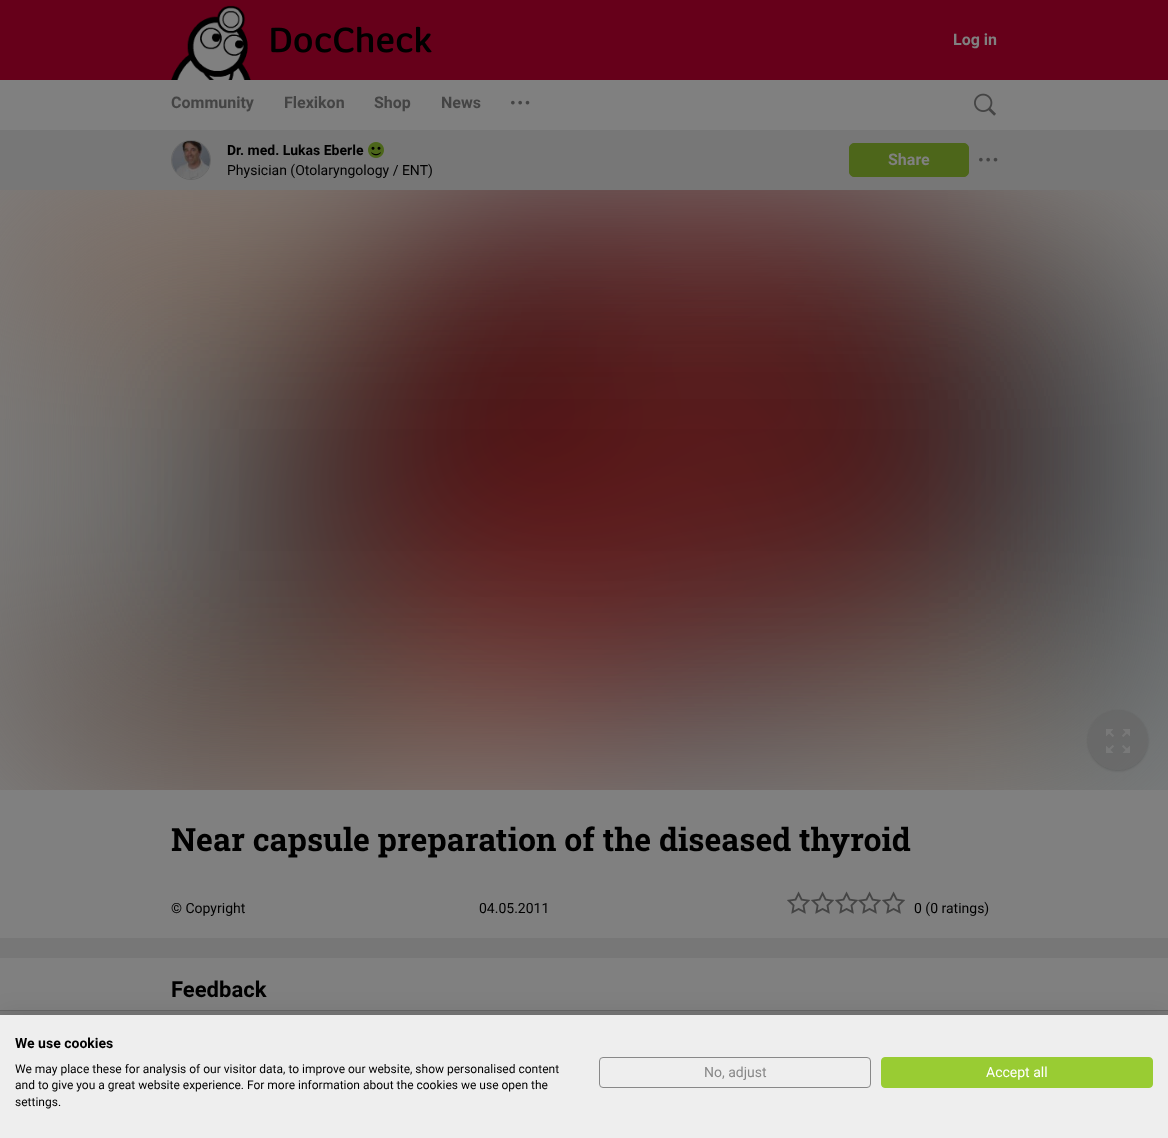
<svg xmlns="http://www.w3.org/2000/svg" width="1168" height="1138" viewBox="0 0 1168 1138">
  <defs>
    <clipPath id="clip1"><path d="M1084 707H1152V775H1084ZM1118 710C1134.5 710 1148 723.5 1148 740C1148 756.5 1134.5 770 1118 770C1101.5 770 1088 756.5 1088 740C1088 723.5 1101.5 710 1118 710Z" clip-rule="evenodd"/></clipPath>
  </defs>
  <rect width="100%" height="100%" fill="#777"/>
  <path d="M0 0h1168v80H0z" fill="#66001a"/>
  <image x="171" y="5" width="80" height="75" href="img/1.png"/>
  <image x="271" y="26" width="161" height="27" href="img/2.png"/>
  <path d="M0 80h1168v50H0z" fill="#808080"/>
  <image x="511" y="100" width="19" height="5" href="img/3.png"/>
  <image x="974" y="93" width="22" height="23" href="img/4.png"/>
  <circle cx="191" cy="160" r="19.5" fill="none" stroke="#666"/>
  <image x="172" y="141" width="38" height="38" href="img/5.png"/>
  <image x="368" y="142" width="16" height="16" href="img/6.png"/>
  <rect x="849.5" y="143.5" width="119" height="33" rx="4.5" fill="#4d661a" stroke="#4d661a"/>
  <image x="979" y="157" width="19" height="5" href="img/7.png"/>
  <path d="M0 190h1168v748H0z" fill="#808080"/>
  <image x="0" y="190" width="1168" height="600" href="img/8.png"/>
  <g clip-path="url(#clip1)">
    <rect x="1088" y="711" width="60" height="60" rx="30" fill="#0000002b" filter="blur(1px)"/>
  </g>
  <circle cx="1118" cy="740" r="30" fill="#666666b3"/>
  <image x="1106" y="729" width="24" height="24" href="img/9.png"/>
  <image x="787" y="891" width="23" height="23" href="img/10.png"/>
  <image x="811" y="891" width="23" height="23" href="img/10.png"/>
  <image x="835" y="891" width="23" height="23" href="img/10.png"/>
  <image x="858" y="891" width="23" height="23" href="img/10.png"/>
  <image x="882" y="891" width="23" height="23" href="img/10.png"/>
  <path d="M0 958h1168v52H0z" fill="#808080"/>
  <path d="M0 1010h1168v1H0z" fill="#666"/>
  <path d="M0 1015h1168v123H0z" fill="#0000001a" filter="blur(12px)"/>
  <path d="M0 1015h1168v123H0z" fill="#eee"/>
  <rect x="599.5" y="1057.5" width="271" height="30" rx="3.5" fill="none" stroke="#888"/>
  <rect x="881.5" y="1057.5" width="271" height="30" rx="3.5" fill="#9c3" stroke="#9c3"/>
  <text x="953" y="45" font-family="Roboto" font-size="16" font-weight="bold" fill="#808080">Log in</text>
  <g font-family="Roboto" font-size="16" font-weight="bold" fill="#444">
    <text x="171" y="108">Community</text>
    <text x="284" y="108">Flexikon</text>
    <text x="374" y="108">Shop</text>
    <text x="441" y="108">News</text>
  </g>
  <text x="227" y="155" font-family="Roboto" font-size="14" font-weight="bold" fill="#000">Dr. med. Lukas Eberle</text>
  <text x="227" y="175" font-family="Roboto" font-size="14" fill="#000">Physician (Otolaryngology / ENT)</text>
  <text x="888" y="165" font-family="Roboto" font-size="16" font-weight="bold" fill="#808080">Share</text>
  <text x="171" y="851" font-family="Roboto Slab" font-size="32" font-weight="bold" fill="#000">Near capsule preparation of the diseased thyroid</text>
  <g font-family="Roboto" font-size="14" fill="#000">
    <text x="171" y="913">© Copyright</text>
    <text x="479" y="913">04.05.2011</text>
    <text x="914" y="913">0 (0 ratings)</text>
  </g>
  <text x="171" y="997" font-family="Roboto" font-size="22" font-weight="bold" fill="#000">Feedback</text>
  <text x="15" y="1048" font-family="Roboto" font-size="14" font-weight="bold" fill="#000">We use cookies</text>
  <g font-family="Roboto" font-size="12" fill="#000">
    <text x="15" y="1073">We may place these for analysis of our visitor data, to improve our website, show personalised content</text>
    <text x="15" y="1089">and to give you a great website experience. For more information about the cookies we use open the</text>
    <text x="15" y="1106">settings.</text>
  </g>
  <text x="704" y="1077" font-family="Roboto" font-size="14" fill="#888">No, adjust</text>
  <text x="986" y="1077" font-family="Roboto" font-size="14" fill="#fff">Accept all</text>
</svg>
